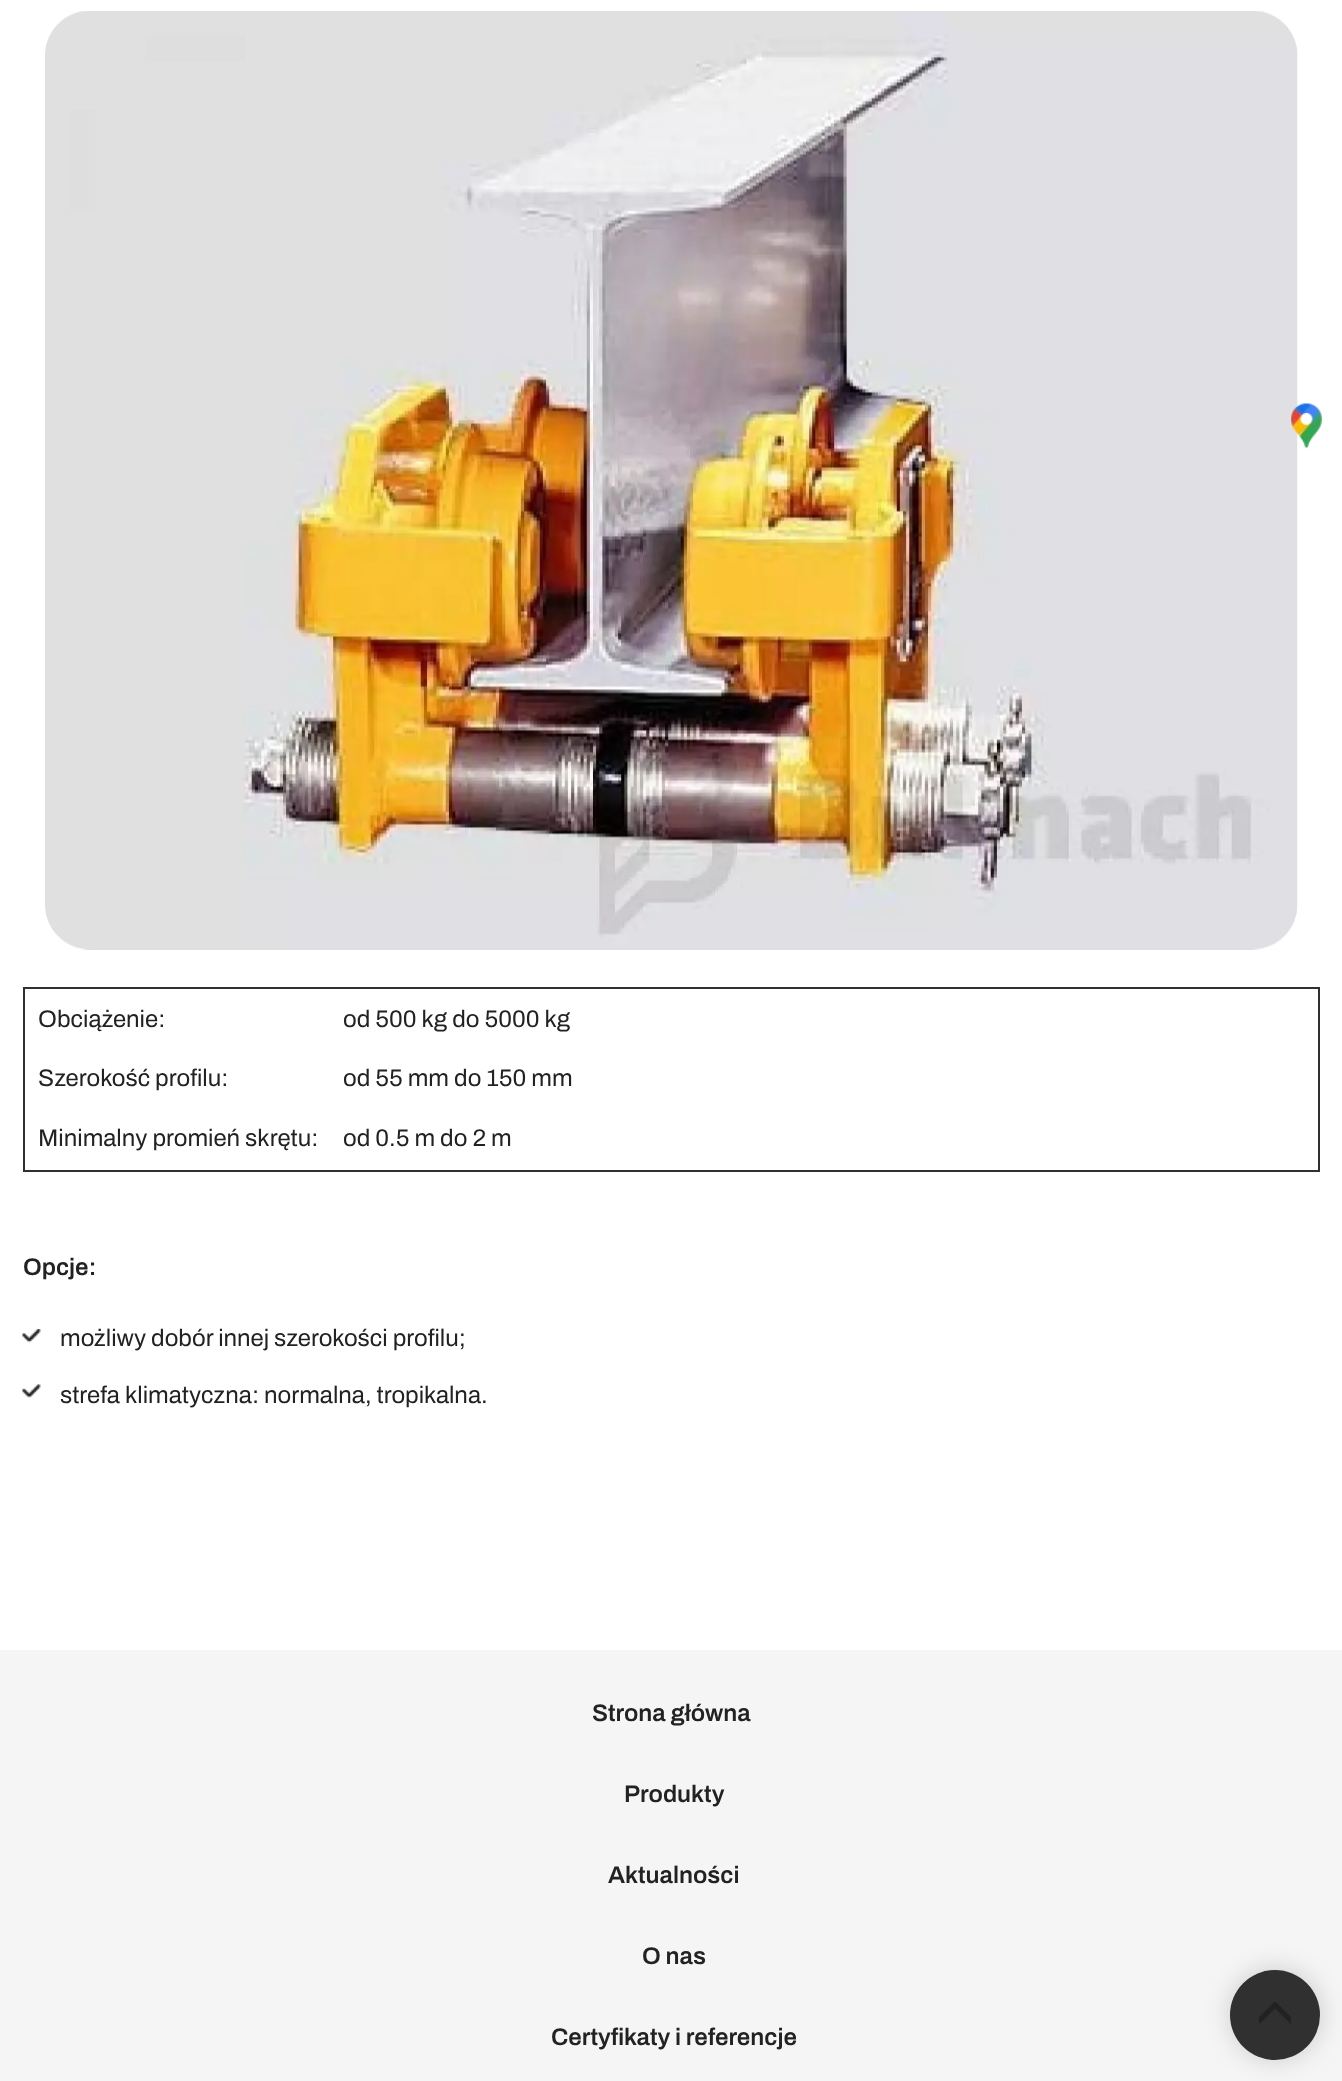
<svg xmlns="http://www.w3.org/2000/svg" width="1342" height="2081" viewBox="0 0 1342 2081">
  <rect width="100%" height="100%" fill="#fff"/>
  <image x="45" y="11" width="1253" height="939" href="img/1.png"/>
  <path d="M24 988h1295v183H24z" fill="none" stroke="#303030" stroke-width="2"/>
  <image x="22" y="1329" width="19" height="14" href="img/2.png"/>
  <image x="22" y="1384" width="19" height="14" href="img/3.png"/>
  <image x="1291" y="403" width="31" height="46" href="img/4.png"/>
  <path d="M0 1650h1342v431H0z" fill="#f5f5f5"/>
  <rect x="1229" y="1968" width="93" height="93" rx="46.5" fill="#00000026" filter="blur(12px)"/>
  <circle cx="1275" cy="2015" r="45" fill="#303030"/>
  <image x="1259" y="2002" width="32" height="22" href="img/5.png"/>
  <g font-family="Archivo" font-size="24" fill="#222">
    <text x="38" y="1027">Obciążenie:</text>
    <text x="343" y="1027">od 500 kg do 5000 kg</text>
    <text x="38" y="1086">Szerokość profilu:</text>
    <text x="343" y="1086">od 55 mm do 150 mm</text>
    <text x="38" y="1146">Minimalny promień skrętu:</text>
    <text x="343" y="1146">od 0.5 m do 2 m</text>
  </g>
  <text x="23" y="1275" font-family="Archivo" font-size="24" font-weight="600" fill="#222">Opcje:</text>
  <g font-family="Archivo" font-size="24" fill="#222">
    <text x="60" y="1346">możliwy dobór innej szerokości profilu;</text>
    <text x="60" y="1403">strefa klimatyczna: normalna, tropikalna.</text>
  </g>
  <g font-family="Archivo" font-size="24" font-weight="600" fill="#222">
    <text x="592" y="1721">Strona główna</text>
    <text x="624" y="1802">Produkty</text>
    <text x="608" y="1883">Aktualności</text>
    <text x="642" y="1964">O nas</text>
    <text x="551" y="2045">Certyfikaty i referencje</text>
  </g>
</svg>
